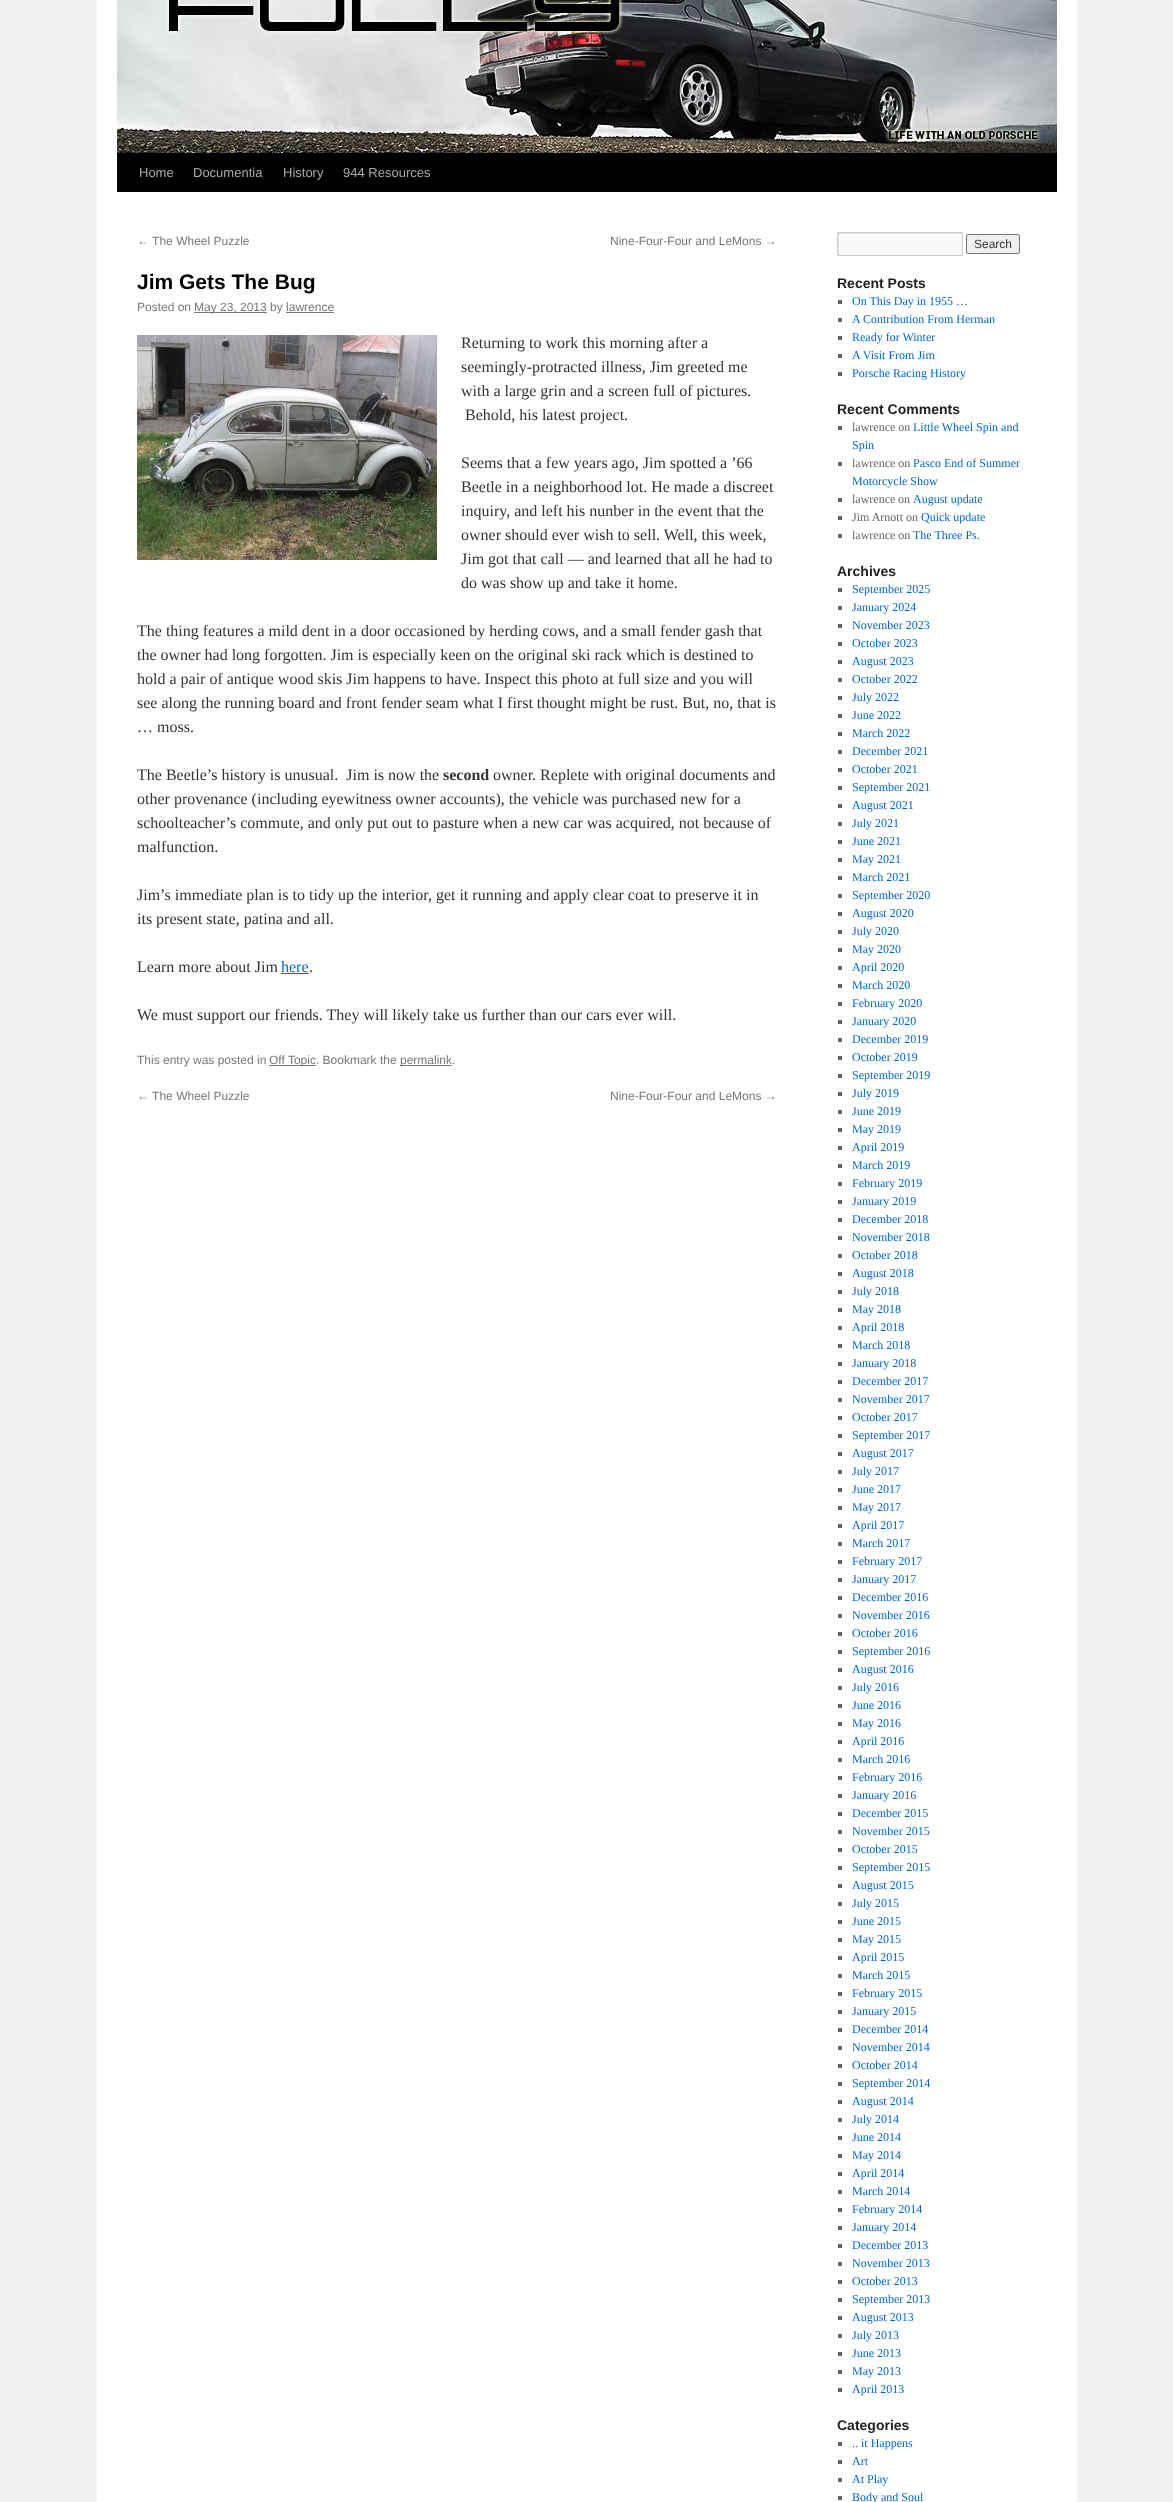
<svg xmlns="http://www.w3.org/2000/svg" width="1173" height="2502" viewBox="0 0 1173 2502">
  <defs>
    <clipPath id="clip1"><path d="M838 233h124v22H838z"/></clipPath>
  </defs>
  <rect width="100%" height="100%" fill="#f1f1f1"/>
  <path d="M97 0h980v2502H97z" fill="#fff"/>
  <path d="M117 153h940v39H117z" fill="#000"/>
  <image x="117" y="0" width="940" height="153" href="img/1.png"/>
  <path d="M194 312h73v1H194z" fill="#777"/>
  <path d="M286 312h48v1H286z" fill="#777"/>
  <image x="137" y="335" width="300" height="225" href="img/2.png"/>
  <path d="M281 973h28v1H281z" fill="#06c"/>
  <path d="M269 1065h47v1H269z" fill="#777"/>
  <path d="M400 1065h52v1H400z" fill="#777"/>
  <path d="M839 234h123v21H839z" fill="#f9f9f9"/>
  <g clip-path="url(#clip1)">
    <path d="M739 134H1061V354H739ZM839 234H963V256H839Z" fill="#e0e0e0" fill-rule="evenodd"/>
  </g>
  <path d="M837.5 232.5h125v23H837.5z" fill="none" stroke="#ccc"/>
  <rect x="966.5" y="234.5" width="53" height="19" rx="1.5" fill="#efefef" stroke="#767676"/>
  <path d="M838 300h4v4H838z" fill="#666"/>
  <path d="M838 318h4v4H838z" fill="#666"/>
  <path d="M838 336h4v4H838z" fill="#666"/>
  <path d="M838 354h4v4H838z" fill="#666"/>
  <path d="M838 372h4v4H838z" fill="#666"/>
  <path d="M838 426h4v4H838z" fill="#666"/>
  <path d="M838 462h4v4H838z" fill="#666"/>
  <path d="M838 498h4v4H838z" fill="#666"/>
  <path d="M838 516h4v4H838z" fill="#666"/>
  <path d="M838 534h4v4H838z" fill="#666"/>
  <path d="M838 588h4v4H838z" fill="#666"/>
  <path d="M838 606h4v4H838z" fill="#666"/>
  <path d="M838 624h4v4H838z" fill="#666"/>
  <path d="M838 642h4v4H838z" fill="#666"/>
  <path d="M838 660h4v4H838z" fill="#666"/>
  <path d="M838 678h4v4H838z" fill="#666"/>
  <path d="M838 696h4v4H838z" fill="#666"/>
  <path d="M838 714h4v4H838z" fill="#666"/>
  <path d="M838 732h4v4H838z" fill="#666"/>
  <path d="M838 750h4v4H838z" fill="#666"/>
  <path d="M838 768h4v4H838z" fill="#666"/>
  <path d="M838 786h4v4H838z" fill="#666"/>
  <path d="M838 804h4v4H838z" fill="#666"/>
  <path d="M838 822h4v4H838z" fill="#666"/>
  <path d="M838 840h4v4H838z" fill="#666"/>
  <path d="M838 858h4v4H838z" fill="#666"/>
  <path d="M838 876h4v4H838z" fill="#666"/>
  <path d="M838 894h4v4H838z" fill="#666"/>
  <path d="M838 912h4v4H838z" fill="#666"/>
  <path d="M838 930h4v4H838z" fill="#666"/>
  <path d="M838 948h4v4H838z" fill="#666"/>
  <path d="M838 966h4v4H838z" fill="#666"/>
  <path d="M838 984h4v4H838z" fill="#666"/>
  <path d="M838 1002h4v4H838z" fill="#666"/>
  <path d="M838 1020h4v4H838z" fill="#666"/>
  <path d="M838 1038h4v4H838z" fill="#666"/>
  <path d="M838 1056h4v4H838z" fill="#666"/>
  <path d="M838 1074h4v4H838z" fill="#666"/>
  <path d="M838 1092h4v4H838z" fill="#666"/>
  <path d="M838 1110h4v4H838z" fill="#666"/>
  <path d="M838 1128h4v4H838z" fill="#666"/>
  <path d="M838 1146h4v4H838z" fill="#666"/>
  <path d="M838 1164h4v4H838z" fill="#666"/>
  <path d="M838 1182h4v4H838z" fill="#666"/>
  <path d="M838 1200h4v4H838z" fill="#666"/>
  <path d="M838 1218h4v4H838z" fill="#666"/>
  <path d="M838 1236h4v4H838z" fill="#666"/>
  <path d="M838 1254h4v4H838z" fill="#666"/>
  <path d="M838 1272h4v4H838z" fill="#666"/>
  <path d="M838 1290h4v4H838z" fill="#666"/>
  <path d="M838 1308h4v4H838z" fill="#666"/>
  <path d="M838 1326h4v4H838z" fill="#666"/>
  <path d="M838 1344h4v4H838z" fill="#666"/>
  <path d="M838 1362h4v4H838z" fill="#666"/>
  <path d="M838 1380h4v4H838z" fill="#666"/>
  <path d="M838 1398h4v4H838z" fill="#666"/>
  <path d="M838 1416h4v4H838z" fill="#666"/>
  <path d="M838 1434h4v4H838z" fill="#666"/>
  <path d="M838 1452h4v4H838z" fill="#666"/>
  <path d="M838 1470h4v4H838z" fill="#666"/>
  <path d="M838 1488h4v4H838z" fill="#666"/>
  <path d="M838 1506h4v4H838z" fill="#666"/>
  <path d="M838 1524h4v4H838z" fill="#666"/>
  <path d="M838 1542h4v4H838z" fill="#666"/>
  <path d="M838 1560h4v4H838z" fill="#666"/>
  <path d="M838 1578h4v4H838z" fill="#666"/>
  <path d="M838 1596h4v4H838z" fill="#666"/>
  <path d="M838 1614h4v4H838z" fill="#666"/>
  <path d="M838 1632h4v4H838z" fill="#666"/>
  <path d="M838 1650h4v4H838z" fill="#666"/>
  <path d="M838 1668h4v4H838z" fill="#666"/>
  <path d="M838 1686h4v4H838z" fill="#666"/>
  <path d="M838 1704h4v4H838z" fill="#666"/>
  <path d="M838 1722h4v4H838z" fill="#666"/>
  <path d="M838 1740h4v4H838z" fill="#666"/>
  <path d="M838 1758h4v4H838z" fill="#666"/>
  <path d="M838 1776h4v4H838z" fill="#666"/>
  <path d="M838 1794h4v4H838z" fill="#666"/>
  <path d="M838 1812h4v4H838z" fill="#666"/>
  <path d="M838 1830h4v4H838z" fill="#666"/>
  <path d="M838 1848h4v4H838z" fill="#666"/>
  <path d="M838 1866h4v4H838z" fill="#666"/>
  <path d="M838 1884h4v4H838z" fill="#666"/>
  <path d="M838 1902h4v4H838z" fill="#666"/>
  <path d="M838 1920h4v4H838z" fill="#666"/>
  <path d="M838 1938h4v4H838z" fill="#666"/>
  <path d="M838 1956h4v4H838z" fill="#666"/>
  <path d="M838 1974h4v4H838z" fill="#666"/>
  <path d="M838 1992h4v4H838z" fill="#666"/>
  <path d="M838 2010h4v4H838z" fill="#666"/>
  <path d="M838 2028h4v4H838z" fill="#666"/>
  <path d="M838 2046h4v4H838z" fill="#666"/>
  <path d="M838 2064h4v4H838z" fill="#666"/>
  <path d="M838 2082h4v4H838z" fill="#666"/>
  <path d="M838 2100h4v4H838z" fill="#666"/>
  <path d="M838 2118h4v4H838z" fill="#666"/>
  <path d="M838 2136h4v4H838z" fill="#666"/>
  <path d="M838 2154h4v4H838z" fill="#666"/>
  <path d="M838 2172h4v4H838z" fill="#666"/>
  <path d="M838 2190h4v4H838z" fill="#666"/>
  <path d="M838 2208h4v4H838z" fill="#666"/>
  <path d="M838 2226h4v4H838z" fill="#666"/>
  <path d="M838 2244h4v4H838z" fill="#666"/>
  <path d="M838 2262h4v4H838z" fill="#666"/>
  <path d="M838 2280h4v4H838z" fill="#666"/>
  <path d="M838 2298h4v4H838z" fill="#666"/>
  <path d="M838 2316h4v4H838z" fill="#666"/>
  <path d="M838 2334h4v4H838z" fill="#666"/>
  <path d="M838 2352h4v4H838z" fill="#666"/>
  <path d="M838 2370h4v4H838z" fill="#666"/>
  <path d="M838 2388h4v4H838z" fill="#666"/>
  <path d="M838 2442h4v4H838z" fill="#666"/>
  <path d="M838 2460h4v4H838z" fill="#666"/>
  <path d="M838 2478h4v4H838z" fill="#666"/>
  <path d="M838 2496h4v4H838z" fill="#666"/>
  <g font-family="Liberation Sans" font-size="13" fill="#aaa">
    <text x="139" y="177">Home</text>
    <text x="193" y="177">Documentia</text>
    <text x="283" y="177">History</text>
    <text x="343" y="177">944 Resources</text>
  </g>
  <g font-family="Liberation Sans" font-size="12" fill="#777">
    <text x="137" y="245">← The Wheel Puzzle</text>
    <text x="610" y="245">Nine-Four-Four and LeMons →</text>
  </g>
  <text x="137" y="289" font-family="Liberation Sans" font-size="21" font-weight="bold" fill="#000">Jim Gets The Bug</text>
  <g font-family="Liberation Sans" font-size="12" fill="#777">
    <text x="137" y="311">Posted on</text>
    <text x="194" y="311">May 23, 2013 by lawrence</text>
  </g>
  <g font-family="Liberation Serif" font-size="16" fill="#333">
    <text x="461" y="348">Returning to work this morning after a</text>
    <text x="461" y="372">seemingly-protracted illness, Jim greeted me</text>
    <text x="461" y="396">with a large grin and a screen full of pictures.</text>
    <text x="465" y="420">Behold, his latest project.</text>
    <text x="461" y="468">Seems that a few years ago, Jim spotted a ’66</text>
    <text x="461" y="492">Beetle in a neighborhood lot. He made a discreet</text>
    <text x="461" y="516">inquiry, and left his nunber in the event that the</text>
    <text x="461" y="540">owner should ever wish to sell. Well, this week,</text>
    <text x="461" y="564">Jim got that call — and learned that all he had to</text>
    <text x="461" y="588">do was show up and take it home.</text>
    <text x="137" y="636">The thing features a mild dent in a door occasioned by herding cows, and a small fender gash that</text>
    <text x="137" y="660">the owner had long forgotten. Jim is especially keen on the original ski rack which is destined to</text>
    <text x="137" y="684">hold a pair of antique wood skis Jim happens to have. Inspect this photo at full size and you will</text>
    <text x="137" y="708">see along the running board and front fender seam what I first thought might be rust. But, no, that is</text>
    <text x="137" y="732">… moss.</text>
    <text x="137" y="780" xml:space="preserve">The Beetle’s history is unusual.  Jim is now the</text>
  </g>
  <text x="443" y="780" font-family="Liberation Serif" font-size="16" font-weight="bold" fill="#333">second</text>
  <g font-family="Liberation Serif" font-size="16" fill="#333">
    <text x="493" y="780">owner. Replete with original documents and</text>
    <text x="137" y="804">other provenance (including eyewitness owner accounts), the vehicle was purchased new for a</text>
    <text x="137" y="828">schoolteacher’s commute, and only put out to pasture when a new car was acquired, not because of</text>
    <text x="137" y="852">malfunction.</text>
    <text x="137" y="900">Jim’s immediate plan is to tidy up the interior, get it running and apply clear coat to preserve it in</text>
    <text x="137" y="924">its present state, patina and all.</text>
    <text x="137" y="972">Learn more about Jim</text>
  </g>
  <text x="281" y="972" font-family="Liberation Serif" font-size="16" fill="#06c">here</text>
  <g font-family="Liberation Serif" font-size="16" fill="#333">
    <text x="309" y="972">.</text>
    <text x="137" y="1020">We must support our friends. They will likely take us further than our cars ever will.</text>
  </g>
  <g font-family="Liberation Sans" font-size="12" fill="#777">
    <text x="137" y="1064">This entry was posted in</text>
    <text x="269" y="1064">Off Topic. Bookmark the</text>
    <text x="400" y="1064">permalink.</text>
    <text x="137" y="1100">← The Wheel Puzzle</text>
    <text x="610" y="1100">Nine-Four-Four and LeMons →</text>
  </g>
  <text x="974" y="248" font-family="Liberation Sans" font-size="12" fill="#333">Search</text>
  <text x="837" y="288" font-family="Liberation Sans" font-size="14" font-weight="bold" fill="#222">Recent Posts</text>
  <g font-family="Liberation Serif" font-size="12" fill="#06c">
    <text x="852" y="305">On This Day in 1955 …</text>
    <text x="852" y="323">A Contribution From Herman</text>
    <text x="852" y="341">Ready for Winter</text>
    <text x="852" y="359">A Visit From Jim</text>
    <text x="852" y="377">Porsche Racing History</text>
  </g>
  <text x="837" y="414" font-family="Liberation Sans" font-size="14" font-weight="bold" fill="#222">Recent Comments</text>
  <text x="852" y="431" font-family="Liberation Serif" font-size="12" fill="#666">lawrence on</text>
  <g font-family="Liberation Serif" font-size="12" fill="#06c">
    <text x="913" y="431">Little Wheel Spin and</text>
    <text x="852" y="449">Spin</text>
  </g>
  <text x="852" y="467" font-family="Liberation Serif" font-size="12" fill="#666">lawrence on</text>
  <g font-family="Liberation Serif" font-size="12" fill="#06c">
    <text x="913" y="467">Pasco End of Summer</text>
    <text x="852" y="485">Motorcycle Show</text>
  </g>
  <g font-family="Liberation Serif" font-size="12" fill="#666">
    <text x="852" y="503">lawrence</text>
    <text x="898" y="503">on</text>
  </g>
  <text x="913" y="503" font-family="Liberation Serif" font-size="12" fill="#06c">August update</text>
  <text x="852" y="521" font-family="Liberation Serif" font-size="12" fill="#666">Jim Arnott on</text>
  <text x="921" y="521" font-family="Liberation Serif" font-size="12" fill="#06c">Quick update</text>
  <text x="852" y="539" font-family="Liberation Serif" font-size="12" fill="#666">lawrence on</text>
  <text x="913" y="539" font-family="Liberation Serif" font-size="12" fill="#06c">The Three Ps.</text>
  <text x="837" y="576" font-family="Liberation Sans" font-size="14" font-weight="bold" fill="#222">Archives</text>
  <g font-family="Liberation Serif" font-size="12" fill="#06c">
    <text x="852" y="593">September 2025</text>
    <text x="852" y="611">January 2024</text>
    <text x="852" y="629">November 2023</text>
    <text x="852" y="647">October 2023</text>
    <text x="852" y="665">August 2023</text>
    <text x="852" y="683">October 2022</text>
    <text x="852" y="701">July 2022</text>
    <text x="852" y="719">June 2022</text>
    <text x="852" y="737">March 2022</text>
    <text x="852" y="755">December 2021</text>
    <text x="852" y="773">October 2021</text>
    <text x="852" y="791">September 2021</text>
    <text x="852" y="809">August 2021</text>
    <text x="852" y="827">July 2021</text>
    <text x="852" y="845">June 2021</text>
    <text x="852" y="863">May 2021</text>
    <text x="852" y="881">March 2021</text>
    <text x="852" y="899">September 2020</text>
    <text x="852" y="917">August 2020</text>
    <text x="852" y="935">July 2020</text>
    <text x="852" y="953">May 2020</text>
    <text x="852" y="971">April 2020</text>
    <text x="852" y="989">March 2020</text>
    <text x="852" y="1007">February 2020</text>
    <text x="852" y="1025">January 2020</text>
    <text x="852" y="1043">December 2019</text>
    <text x="852" y="1061">October 2019</text>
    <text x="852" y="1079">September 2019</text>
    <text x="852" y="1097">July 2019</text>
    <text x="852" y="1115">June 2019</text>
    <text x="852" y="1133">May 2019</text>
    <text x="852" y="1151">April 2019</text>
    <text x="852" y="1169">March 2019</text>
    <text x="852" y="1187">February 2019</text>
    <text x="852" y="1205">January 2019</text>
    <text x="852" y="1223">December 2018</text>
    <text x="852" y="1241">November 2018</text>
    <text x="852" y="1259">October 2018</text>
    <text x="852" y="1277">August 2018</text>
    <text x="852" y="1295">July 2018</text>
    <text x="852" y="1313">May 2018</text>
    <text x="852" y="1331">April 2018</text>
    <text x="852" y="1349">March 2018</text>
    <text x="852" y="1367">January 2018</text>
    <text x="852" y="1385">December 2017</text>
    <text x="852" y="1403">November 2017</text>
    <text x="852" y="1421">October 2017</text>
    <text x="852" y="1439">September 2017</text>
    <text x="852" y="1457">August 2017</text>
    <text x="852" y="1475">July 2017</text>
    <text x="852" y="1493">June 2017</text>
    <text x="852" y="1511">May 2017</text>
    <text x="852" y="1529">April 2017</text>
    <text x="852" y="1547">March 2017</text>
    <text x="852" y="1565">February 2017</text>
    <text x="852" y="1583">January 2017</text>
    <text x="852" y="1601">December 2016</text>
    <text x="852" y="1619">November 2016</text>
    <text x="852" y="1637">October 2016</text>
    <text x="852" y="1655">September 2016</text>
    <text x="852" y="1673">August 2016</text>
    <text x="852" y="1691">July 2016</text>
    <text x="852" y="1709">June 2016</text>
    <text x="852" y="1727">May 2016</text>
    <text x="852" y="1745">April 2016</text>
    <text x="852" y="1763">March 2016</text>
    <text x="852" y="1781">February 2016</text>
    <text x="852" y="1799">January 2016</text>
    <text x="852" y="1817">December 2015</text>
    <text x="852" y="1835">November 2015</text>
    <text x="852" y="1853">October 2015</text>
    <text x="852" y="1871">September 2015</text>
    <text x="852" y="1889">August 2015</text>
    <text x="852" y="1907">July 2015</text>
    <text x="852" y="1925">June 2015</text>
    <text x="852" y="1943">May 2015</text>
    <text x="852" y="1961">April 2015</text>
    <text x="852" y="1979">March 2015</text>
    <text x="852" y="1997">February 2015</text>
    <text x="852" y="2015">January 2015</text>
    <text x="852" y="2033">December 2014</text>
    <text x="852" y="2051">November 2014</text>
    <text x="852" y="2069">October 2014</text>
    <text x="852" y="2087">September 2014</text>
    <text x="852" y="2105">August 2014</text>
    <text x="852" y="2123">July 2014</text>
    <text x="852" y="2141">June 2014</text>
    <text x="852" y="2159">May 2014</text>
    <text x="852" y="2177">April 2014</text>
    <text x="852" y="2195">March 2014</text>
    <text x="852" y="2213">February 2014</text>
    <text x="852" y="2231">January 2014</text>
    <text x="852" y="2249">December 2013</text>
    <text x="852" y="2267">November 2013</text>
    <text x="852" y="2285">October 2013</text>
    <text x="852" y="2303">September 2013</text>
    <text x="852" y="2321">August 2013</text>
    <text x="852" y="2339">July 2013</text>
    <text x="852" y="2357">June 2013</text>
    <text x="852" y="2375">May 2013</text>
    <text x="852" y="2393">April 2013</text>
  </g>
  <text x="837" y="2430" font-family="Liberation Sans" font-size="14" font-weight="bold" fill="#222">Categories</text>
  <g font-family="Liberation Serif" font-size="12" fill="#06c">
    <text x="852" y="2447">.. it Happens</text>
    <text x="852" y="2465">Art</text>
    <text x="852" y="2483">At Play</text>
    <text x="852" y="2501">Body and Soul</text>
  </g>
</svg>
